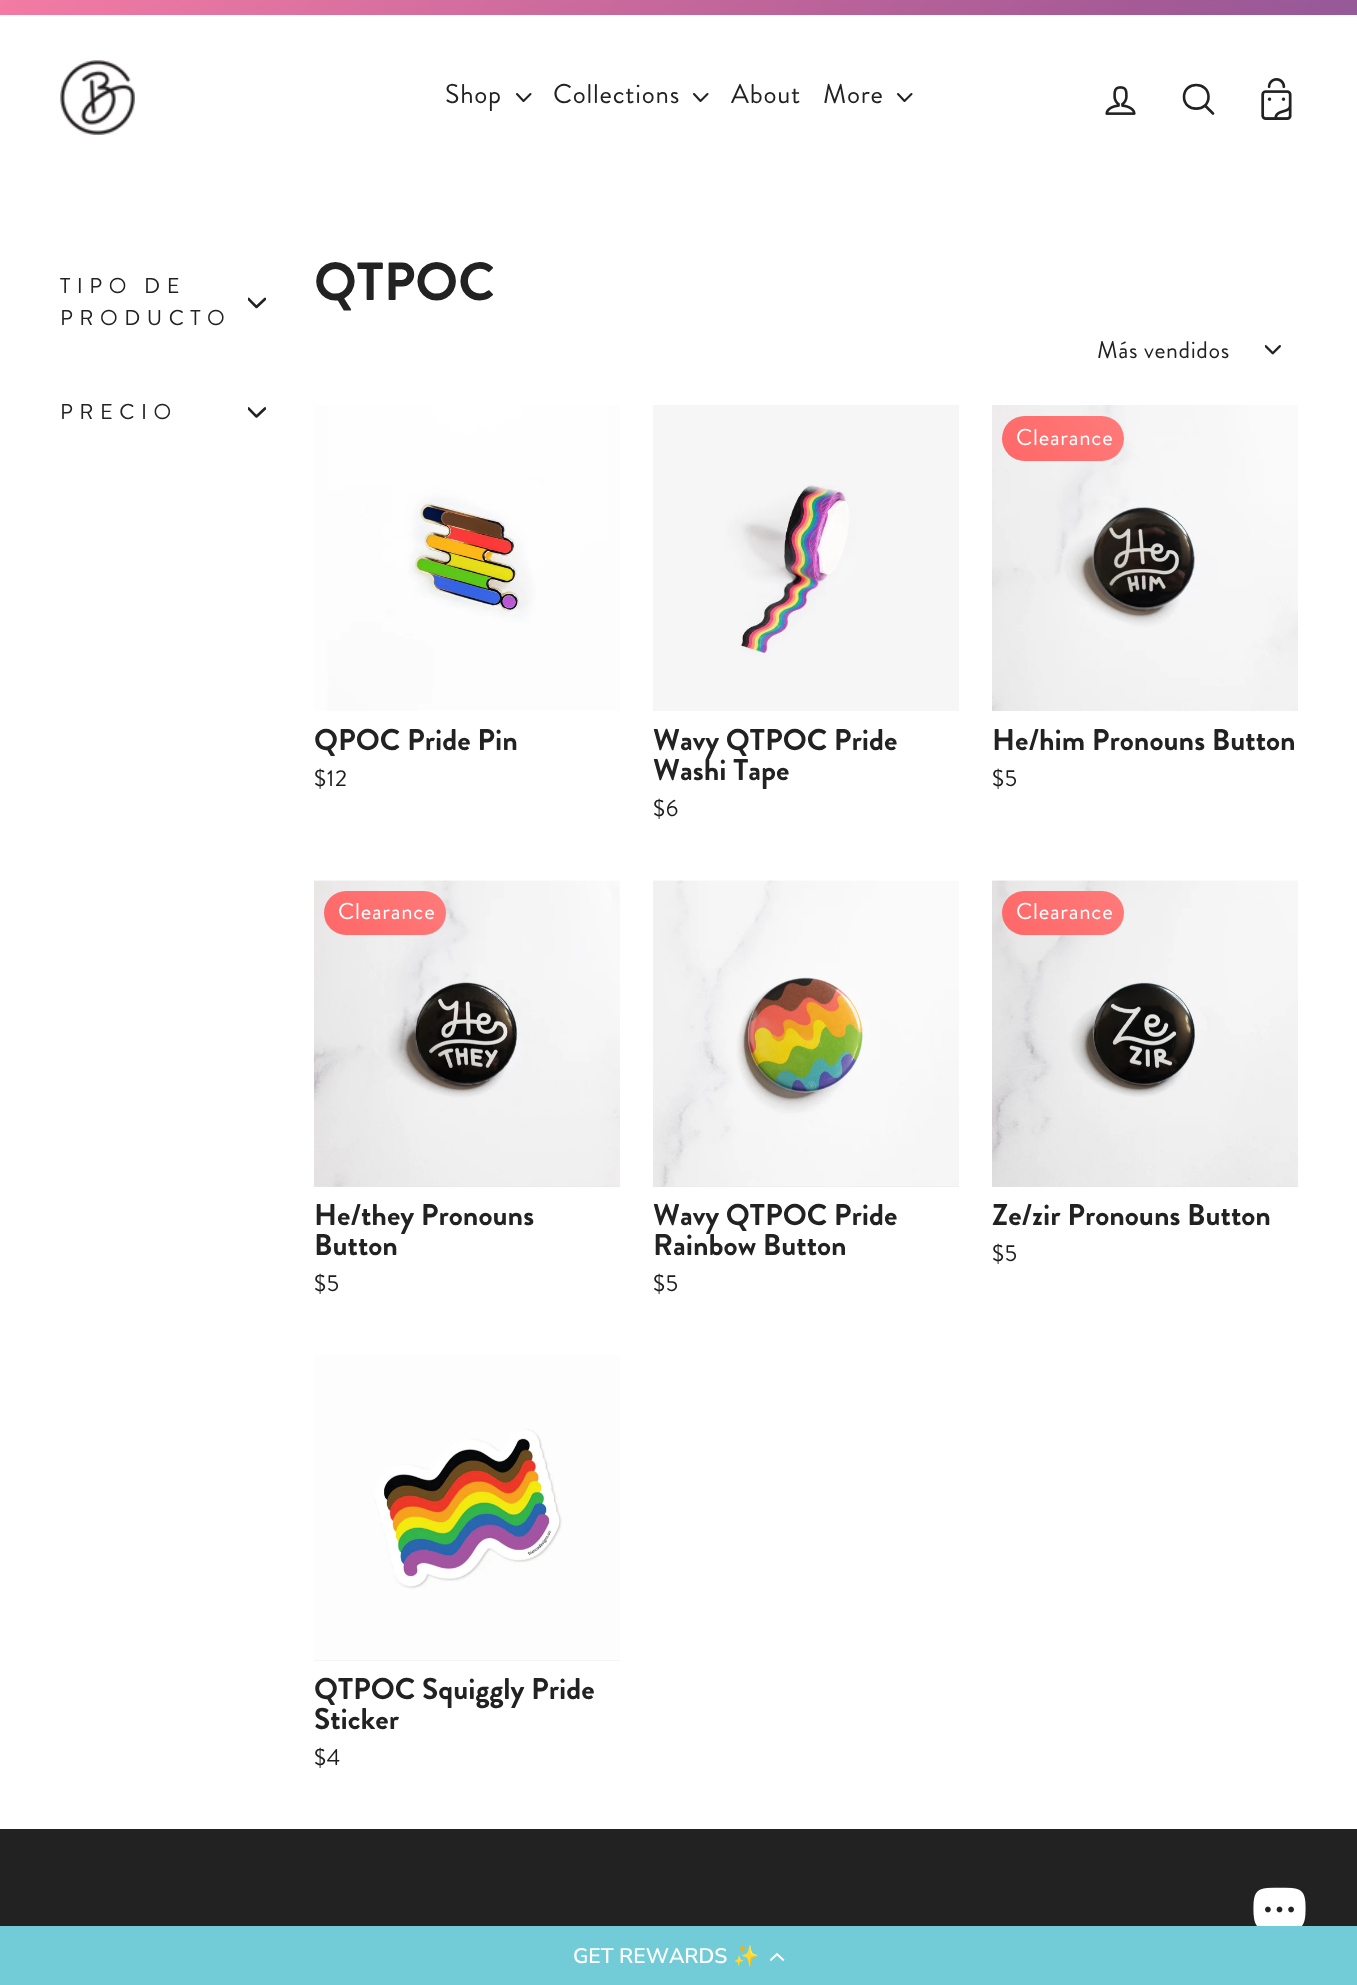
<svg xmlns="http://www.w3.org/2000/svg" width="1357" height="1985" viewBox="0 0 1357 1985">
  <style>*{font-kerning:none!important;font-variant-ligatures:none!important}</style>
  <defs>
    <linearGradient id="g1" gradientUnits="userSpaceOnUse" x1="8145" y1="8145" x2="0" y2="0"><stop offset="0" stop-color="#f37ba4"/><stop offset="0.07" stop-color="#f06159"/><stop offset="0.14" stop-color="#f6a704"/><stop offset="0.21" stop-color="#ffe806"/><stop offset="0.29" stop-color="#00bcb4"/><stop offset="0.36" stop-color="#5a55a5"/><stop offset="0.43" stop-color="#a55a96"/><stop offset="0.5" stop-color="#f37ba4"/><stop offset="0.57" stop-color="#f06159"/><stop offset="0.64" stop-color="#f6a704"/><stop offset="0.71" stop-color="#ffe806"/><stop offset="0.79" stop-color="#00bcb4"/><stop offset="0.86" stop-color="#5a55a5"/><stop offset="0.93" stop-color="#a55a96"/><stop offset="1" stop-color="#f37ba4"/></linearGradient>
    <clipPath id="clip1"><path d="M248 294h18v18H248z"/></clipPath>
    <clipPath id="clip2"><path d="M248 404h18v18H248z"/></clipPath>
    <linearGradient id="g2" gradientUnits="userSpaceOnUse" x1="1021" y1="480" x2="1104" y2="396"><stop offset="0" stop-color="#ff6767"/><stop offset="1" stop-color="#ff7b7b"/></linearGradient>
    <linearGradient id="g3" gradientUnits="userSpaceOnUse" x1="344" y1="954" x2="426" y2="872"><stop offset="0" stop-color="#ff6767"/><stop offset="1" stop-color="#ff7b7b"/></linearGradient>
    <linearGradient id="g4" gradientUnits="userSpaceOnUse" x1="1022" y1="954" x2="1104" y2="872"><stop offset="0" stop-color="#ff6767"/><stop offset="1" stop-color="#ff7b7b"/></linearGradient>
  </defs>
  <rect width="100%" height="100%" fill="#fff"/>
  <path d="M0 0h1357v15H0z" fill="url(#g1)"/>
  <image x="60" y="60" width="75" height="75" href="img/1.png"/>
  <path d="M517 94L523.5 101L530.5 94" fill="none" stroke="#222" stroke-width="2.1" stroke-linecap="round" stroke-linejoin="round"/>
  <path d="M694 94L700.5 101L707.5 94" fill="none" stroke="#222" stroke-width="2.1" stroke-linecap="round" stroke-linejoin="round"/>
  <path d="M898 94L904.5 101L911.5 94" fill="none" stroke="#222" stroke-width="2.1" stroke-linecap="round" stroke-linejoin="round"/>
  <image x="1105" y="86" width="31" height="29" href="img/2.png"/>
  <path d="M1208.5 97C1208.5 112.5 1184 112.5 1184 97C1184 81 1208.5 81 1208.5 97ZM1213 113.5L1205 105.5" fill="none" stroke="#222" stroke-width="2.6" stroke-linecap="round" stroke-linejoin="round"/>
  <image x="1261" y="78" width="31" height="42" href="img/3.png"/>
  <g clip-path="url(#clip1)">
    <path d="M248.5 299L256.5 307L265 299" fill="none" stroke="#222" stroke-width="2.6" stroke-linecap="round" stroke-linejoin="round"/>
  </g>
  <g clip-path="url(#clip2)">
    <path d="M248.5 408.5L256.5 416.5L265 408.5" fill="none" stroke="#222" stroke-width="2.6" stroke-linecap="round" stroke-linejoin="round"/>
  </g>
  <image x="1265" y="345" width="16" height="10" href="img/4.png"/>
  <image x="314" y="405" width="306" height="306" href="img/5.png"/>
  <image x="653" y="405" width="306" height="306" href="img/6.png"/>
  <image x="992" y="405" width="306" height="306" href="img/7.png"/>
  <rect x="1002" y="416" width="122" height="45" rx="22.5" fill="url(#g2)"/>
  <path d="M314 1186h306v1H314z" fill="#e5e5e5"/>
  <image x="314" y="880" width="306" height="307" href="img/8.png"/>
  <rect x="324" y="891" width="122" height="44" rx="22" fill="url(#g3)"/>
  <path d="M653 1186h306v1H653z" fill="#e5e5e5"/>
  <image x="653" y="880" width="306" height="307" href="img/9.png"/>
  <path d="M992 1186h306v1H992z" fill="#e5e5e5"/>
  <image x="992" y="880" width="306" height="307" href="img/10.png"/>
  <rect x="1002" y="891" width="122" height="44" rx="22" fill="url(#g4)"/>
  <path d="M314 1660h306v1H314z" fill="#e5e5e5"/>
  <image x="314" y="1355" width="306" height="306" href="img/11.png"/>
  <path d="M0 1829h1357v97H0z" fill="#222"/>
  <image x="1253" y="1887" width="53" height="39" href="img/12.png"/>
  <path d="M0 1926h1357v59H0z" fill="#72ccd7"/>
  <image x="770" y="1952" width="15" height="9" href="img/13.png"/>
  <g font-family="Brandon Grotesque" font-size="27" letter-spacing="0.75" fill="#222">
    <text x="445" y="103">Shop</text>
    <text x="553" y="103">Collections</text>
    <text x="731" y="103">About</text>
    <text x="823" y="103">More</text>
  </g>
  <g font-family="Brandon Grotesque" font-size="21.5" letter-spacing="6.5" fill="#222">
    <text x="60" y="293">TIPO DE</text>
    <text x="60" y="325">PRODUCTO</text>
    <text x="60" y="419">PRECIO</text>
  </g>
  <text x="314" y="300" font-family="Brandon Grotesque" font-size="53.5" font-weight="bold" fill="#222">QTPOC</text>
  <text x="1097" y="358" font-family="Brandon Grotesque" font-size="24" letter-spacing="0.6" fill="#222">Más vendidos</text>
  <text x="314" y="750" font-family="Brandon Grotesque" font-size="30" font-weight="bold" fill="#222">QPOC Pride Pin</text>
  <text x="314" y="786" font-family="Brandon Grotesque" font-size="23" letter-spacing="0.75" fill="#1c1d1d">$12</text>
  <g font-family="Brandon Grotesque" font-size="30" font-weight="bold" fill="#222">
    <text x="653" y="750">Wavy QTPOC Pride</text>
    <text x="653" y="780">Washi Tape</text>
  </g>
  <text x="653" y="816" font-family="Brandon Grotesque" font-size="23" letter-spacing="0.75" fill="#1c1d1d">$6</text>
  <text x="1016" y="445" font-family="Brandon Grotesque" font-size="23" letter-spacing="0.75" fill="#fff">Clearance</text>
  <text x="992" y="750" font-family="Brandon Grotesque" font-size="30" font-weight="bold" fill="#222">He/him Pronouns Button</text>
  <text x="992" y="786" font-family="Brandon Grotesque" font-size="23" letter-spacing="0.75" fill="#1c1d1d">$5</text>
  <text x="338" y="919" font-family="Brandon Grotesque" font-size="23" letter-spacing="0.75" fill="#fff">Clearance</text>
  <g font-family="Brandon Grotesque" font-size="30" font-weight="bold" fill="#222">
    <text x="314" y="1225">He/they Pronouns</text>
    <text x="314" y="1255">Button</text>
  </g>
  <text x="314" y="1291" font-family="Brandon Grotesque" font-size="23" letter-spacing="0.75" fill="#1c1d1d">$5</text>
  <g font-family="Brandon Grotesque" font-size="30" font-weight="bold" fill="#222">
    <text x="653" y="1225">Wavy QTPOC Pride</text>
    <text x="653" y="1255">Rainbow Button</text>
  </g>
  <text x="653" y="1291" font-family="Brandon Grotesque" font-size="23" letter-spacing="0.75" fill="#1c1d1d">$5</text>
  <text x="1016" y="919" font-family="Brandon Grotesque" font-size="23" letter-spacing="0.75" fill="#fff">Clearance</text>
  <text x="992" y="1225" font-family="Brandon Grotesque" font-size="30" font-weight="bold" fill="#222">Ze/zir Pronouns Button</text>
  <text x="992" y="1261" font-family="Brandon Grotesque" font-size="23" letter-spacing="0.75" fill="#1c1d1d">$5</text>
  <g font-family="Brandon Grotesque" font-size="30" font-weight="bold" fill="#222">
    <text x="314" y="1699">QTPOC Squiggly Pride</text>
    <text x="314" y="1729">Sticker</text>
  </g>
  <text x="314" y="1765" font-family="Brandon Grotesque" font-size="23" letter-spacing="0.75" fill="#1c1d1d">$4</text>
  <text x="573" y="1963" font-family="Nunito Sans" font-size="21" font-weight="600" fill="#fff">GET REWARDS</text>
  <text x="733" y="1963" font-family="Noto Color Emoji" font-size="21" font-weight="bold" fill="#fff">✨</text>
</svg>
